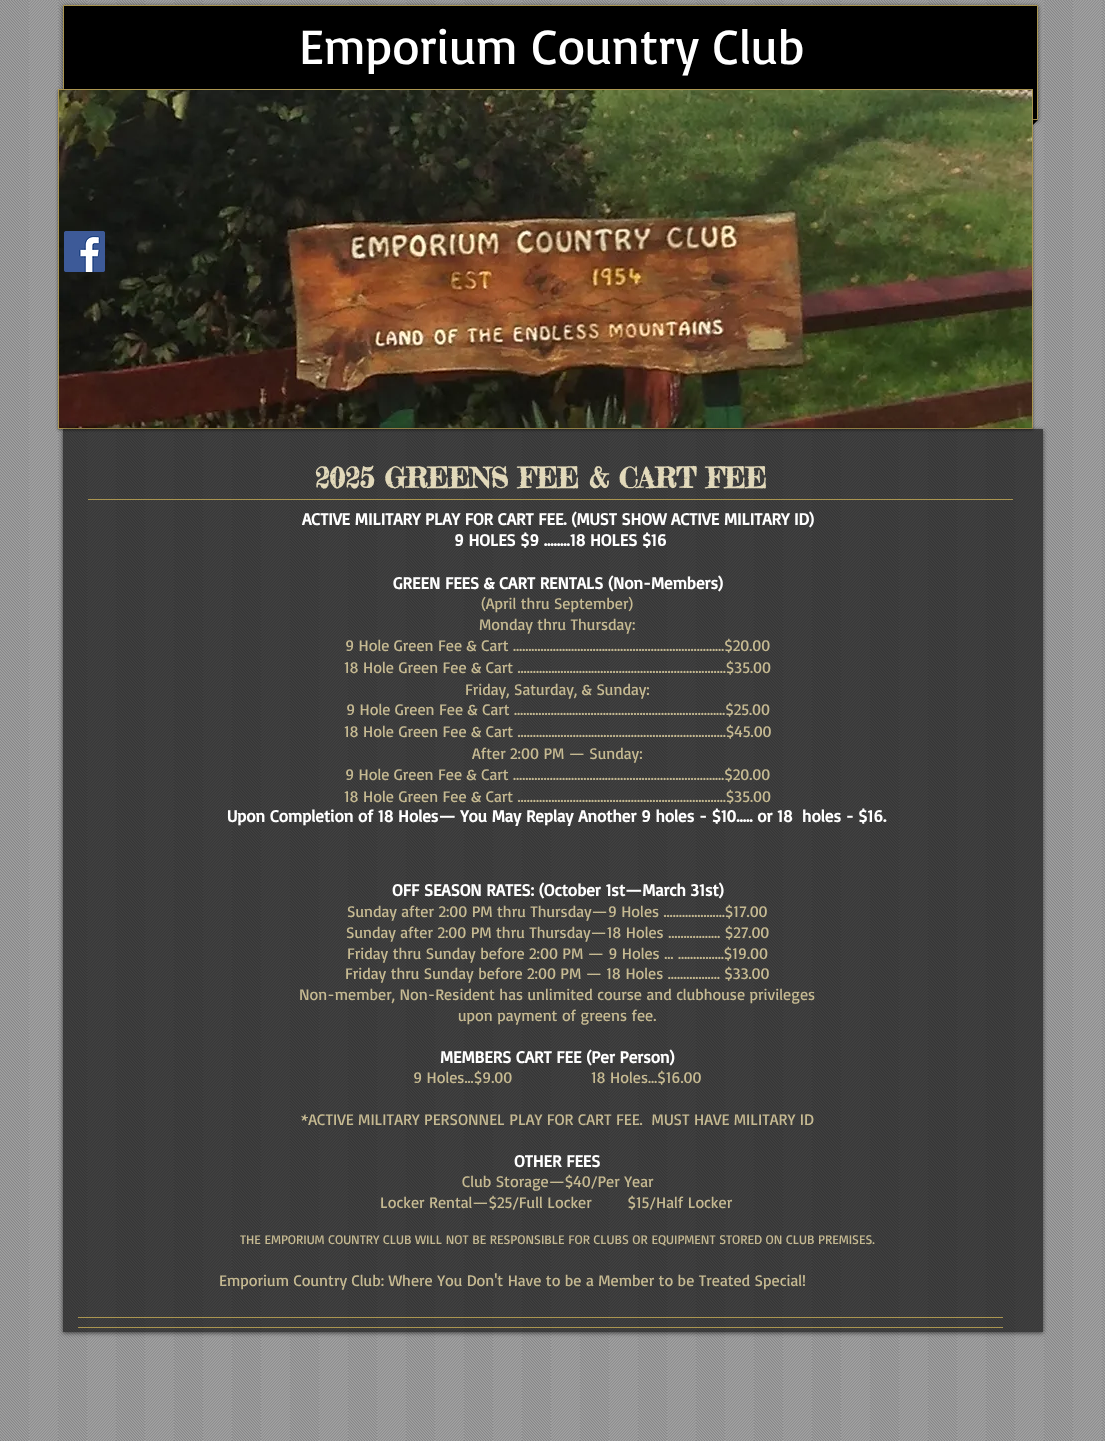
<svg xmlns="http://www.w3.org/2000/svg" width="1105" height="1441" viewBox="0 0 1105 1441">
  <style>*{font-kerning:none!important;font-variant-ligatures:none!important}</style>
  <defs>
    <clipPath id="clip1"><path d="M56 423H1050V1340H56ZM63 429H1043V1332H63Z" clip-rule="evenodd"/></clipPath>
  </defs>
  <rect width="100%" height="100%" fill="#a7a7a7"/>
  <image x="0" y="0" width="1105" height="1441" href="img/1.png"/>
  <path d="M1028 120H1038L1028 130Z" fill="#000"/>
  <path d="M63 6h975v115H63z" fill="#00000099" filter="blur(2px)"/>
  <path d="M63.5 5.5h974v114H63.5z" fill="#000" stroke="#aa9550"/>
  <path d="M58 90h975v340H58z" fill="#00000080" filter="blur(1.5px)"/>
  <path d="M58 89h975v340H58z" fill="#aa9550"/>
  <image x="59" y="90" width="973" height="338" href="img/2.png"/>
  <image x="64" y="231" width="41" height="41" href="img/3.png"/>
  <g clip-path="url(#clip1)">
    <path d="M63 430h980v903H63z" fill="#00000099" filter="blur(2px)"/>
  </g>
  <path d="M63 429h980v903H63z" fill="#00000099"/>
  <path d="M88 499h925v1H88z" fill="#aa9550"/>
  <path d="M78 1317h925v1H78z" fill="#aa9550"/>
  <path d="M78 1327h925v1H78z" fill="#aa9550"/>
  <text x="299" y="64" font-family="Basic" font-size="50" fill="#fff">Emporium Country Club</text>
  <text x="315" y="488" font-family="Fredericka the Great" font-size="28" font-weight="bold" fill="#e2d9ba">2025 GREENS FEE &amp; CART FEE</text>
  <g font-family="Basic" font-size="17" font-weight="bold" fill="#fff">
    <text x="302" y="525">ACTIVE MILITARY PLAY FOR CART FEE. (MUST SHOW ACTIVE MILITARY ID)</text>
    <text x="454" y="546">9 HOLES $9 ........18 HOLES $16</text>
    <text x="393" y="589">GREEN FEES &amp; CART RENTALS (Non-Members)</text>
  </g>
  <g font-family="Basic" font-size="16" fill="#c6ba92">
    <text x="481" y="609">(April thru September)</text>
    <text x="479" y="630">Monday thru Thursday:</text>
    <text x="345" y="651">9 Hole Green Fee &amp; Cart ……………………………………………………………$20.00</text>
    <text x="344" y="673">18 Hole Green Fee &amp; Cart ……………………………………………………..……$35.00</text>
    <text x="465" y="695">Friday, Saturday, &amp; Sunday:</text>
    <text x="346" y="715">9 Hole Green Fee &amp; Cart ……………………………………………………………$25.00</text>
    <text x="344" y="737">18 Hole Green Fee &amp; Cart ……………………………………………………..……$45.00</text>
    <text x="472" y="759">After 2:00 PM — Sunday:</text>
    <text x="345" y="780">9 Hole Green Fee &amp; Cart ……………………………………………………………$20.00</text>
    <text x="344" y="802">18 Hole Green Fee &amp; Cart ……………………………………………………..……$35.00</text>
  </g>
  <g font-family="Basic" font-size="17" font-weight="bold" fill="#fff">
    <text x="227" y="822" xml:space="preserve">Upon Completion of 18 Holes— You May Replay Another 9 holes - $10..... or 18  holes - $16.</text>
    <text x="392" y="896">OFF SEASON RATES: (October 1st—March 31st)</text>
  </g>
  <g font-family="Basic" font-size="16" fill="#c6ba92">
    <text x="347" y="917">Sunday after 2:00 PM thru Thursday—9 Holes ……….…….…$17.00</text>
    <text x="346" y="938">Sunday after 2:00 PM thru Thursday—18 Holes ……….….… $27.00</text>
    <text x="347" y="959">Friday thru Sunday before 2:00 PM — 9 Holes … ……………$19.00</text>
    <text x="345" y="979">Friday thru Sunday before 2:00 PM — 18 Holes ……….….… $33.00</text>
    <text x="299" y="1000">Non-member, Non-Resident has unlimited course and clubhouse privileges</text>
    <text x="458" y="1021">upon payment of greens fee.</text>
  </g>
  <text x="440" y="1063" font-family="Basic" font-size="17" font-weight="bold" fill="#fff">MEMBERS CART FEE (Per Person)</text>
  <g font-family="Basic" font-size="16" fill="#c6ba92">
    <text x="413" y="1083">9 Holes...$9.00</text>
    <text x="591" y="1083">18 Holes…$16.00</text>
    <text x="301" y="1125" xml:space="preserve">*ACTIVE MILITARY PERSONNEL PLAY FOR CART FEE.  MUST HAVE MILITARY ID</text>
  </g>
  <text x="514" y="1167" font-family="Basic" font-size="17" font-weight="bold" fill="#fff">OTHER FEES</text>
  <g font-family="Basic" font-size="16" fill="#c6ba92">
    <text x="462" y="1187">Club Storage—$40/Per Year</text>
    <text x="380" y="1208" xml:space="preserve">Locker Rental—$25/Full Locker        $15/Half Locker</text>
  </g>
  <text x="240" y="1244" font-family="Basic" font-size="13" fill="#c6ba92">THE EMPORIUM COUNTRY CLUB WILL NOT BE RESPONSIBLE FOR CLUBS OR EQUIPMENT STORED ON CLUB PREMISES.</text>
  <text x="219" y="1286" font-family="Basic" font-size="16" fill="#c6ba92">Emporium Country Club: Where You Don't Have to be a Member to be Treated Special!</text>
</svg>
